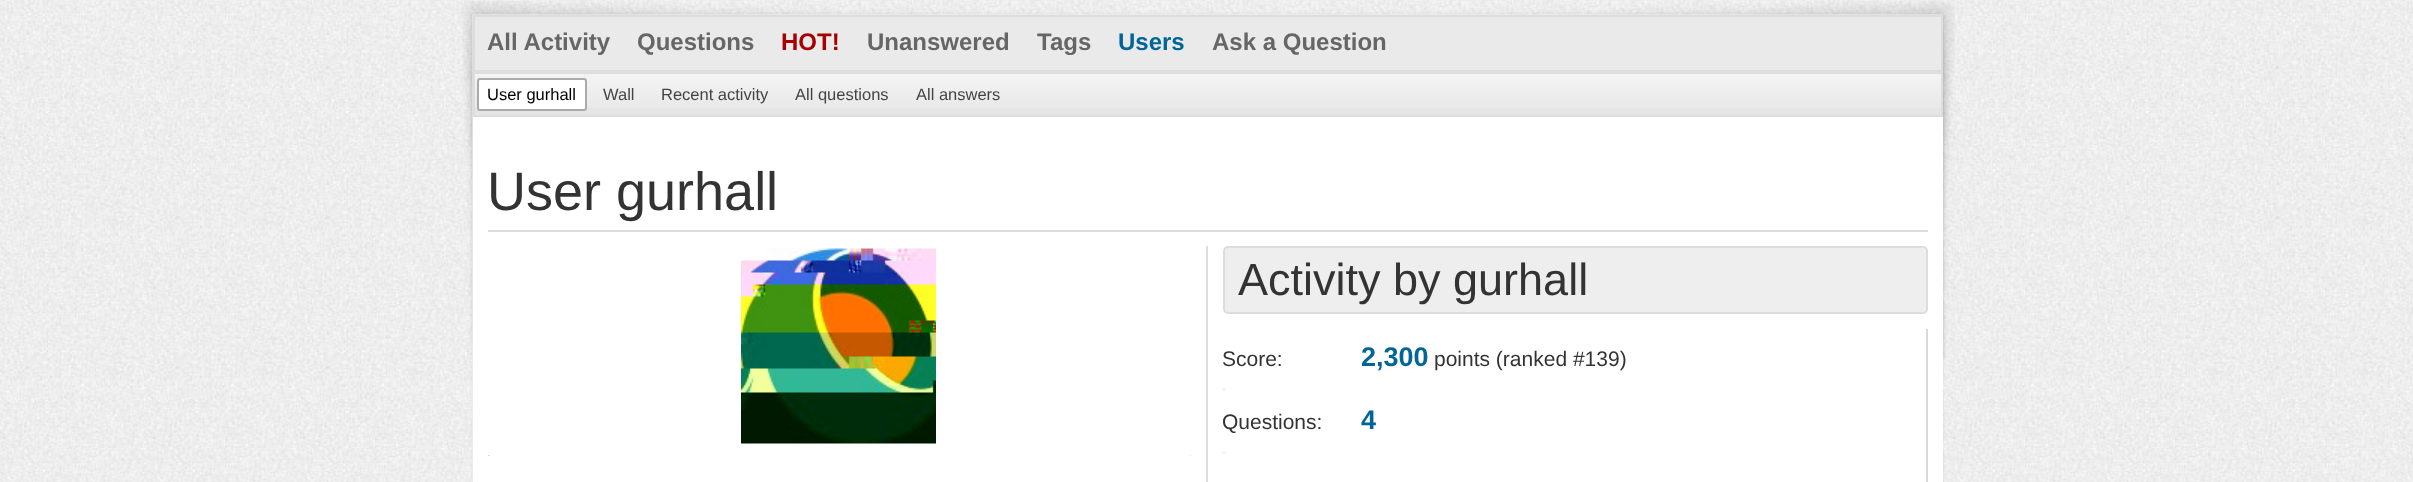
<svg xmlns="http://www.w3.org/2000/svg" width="2413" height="482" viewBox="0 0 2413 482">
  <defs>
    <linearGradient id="g1" gradientUnits="userSpaceOnUse" x1="1208" y1="73" x2="1208" y2="116"><stop offset="0" stop-color="#f4f4f4"/><stop offset="1" stop-color="#e6e6e6"/></linearGradient>
    <clipPath id="clip1"><path d="M1223 329h705v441H1223z"/></clipPath>
  </defs>
  <rect width="100%" height="100%" fill="#fff"/>
  <image x="0" y="0" width="2413" height="482" href="img/1.png"/>
  <image x="462" y="1" width="1493" height="481" href="img/2.png"/>
  <path d="M473 15h1470v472H473z" fill="#0000001a" filter="blur(1.5px)"/>
  <path d="M473 117h1470v365H473z" fill="#fff"/>
  <path d="M474 16h1468v55H474z" fill="#eaeaea" stroke="#ddd" stroke-width="2"/>
  <path d="M475 74h1466v34H475z" fill="url(#g1)"/>
  <path d="M474 73h1468v43H474z" fill="none" stroke="#ddd" stroke-width="2"/>
  <rect x="478" y="79" width="108" height="31" rx="2" fill="#fff" stroke="#aaa" stroke-width="2"/>
  <path d="M488 230h1440v2H488z" fill="#ddd"/>
  <path d="M1206 246h2v236H1206z" fill="#ddd"/>
  <path d="M1190 455h1v1H1190z" fill="#d9d9d9"/>
  <path d="M488 455h2v1H488z" fill="#d9d9d9"/>
  <image x="741" y="248" width="195" height="196" href="img/3.png"/>
  <rect x="1224" y="247" width="703" height="66" rx="4" fill="#eee" stroke="#ddd" stroke-width="2"/>
  <path d="M1926 329h2v153H1926z" fill="#d9d9d9"/>
  <path d="M1223 389h2v64H1223z" fill="#d9d9d9"/>
  <path d="M1223 390h2v62H1223z" fill="#fff"/>
  <g font-family="Liberation Sans" font-size="24" font-weight="bold" fill="#666">
    <text x="487" y="50">All Activity</text>
    <text x="637" y="50">Questions</text>
  </g>
  <text x="781" y="50" font-family="Liberation Sans" font-size="24" font-weight="bold" fill="#a80000">HOT!</text>
  <g font-family="Liberation Sans" font-size="24" font-weight="bold" fill="#666">
    <text x="867" y="50">Unanswered</text>
    <text x="1037" y="50">Tags</text>
  </g>
  <text x="1118" y="50" font-family="Liberation Sans" font-size="24" font-weight="bold" fill="#069">Users</text>
  <text x="1212" y="50" font-family="Liberation Sans" font-size="24" font-weight="bold" fill="#666">Ask a Question</text>
  <text x="487" y="100" font-family="Liberation Sans" font-size="16.5" fill="#000">User gurhall</text>
  <g font-family="Liberation Sans" font-size="16.5" fill="#444">
    <text x="603" y="100">Wall</text>
    <text x="661" y="100">Recent activity</text>
    <text x="795" y="100">All questions</text>
    <text x="916" y="100">All answers</text>
  </g>
  <text x="487" y="210" font-family="Liberation Sans" font-size="54" fill="#333">User gurhall</text>
  <text x="1238" y="295" font-family="Liberation Sans" font-size="45" fill="#333">Activity by gurhall</text>
  <text x="1222" y="366" font-family="Liberation Sans" font-size="21" fill="#333">Score:</text>
  <text x="1361" y="366" font-family="Liberation Sans" font-size="27" font-weight="bold" fill="#069">2,300</text>
  <text x="1434" y="366" font-family="Liberation Sans" font-size="21" fill="#333">points (ranked #139)</text>
  <g clip-path="url(#clip1)">
    <text x="1222" y="429" font-family="Liberation Sans" font-size="21" fill="#333">Questions:</text>
  </g>
  <text x="1361" y="429" font-family="Liberation Sans" font-size="27" font-weight="bold" fill="#069">4</text>
</svg>
